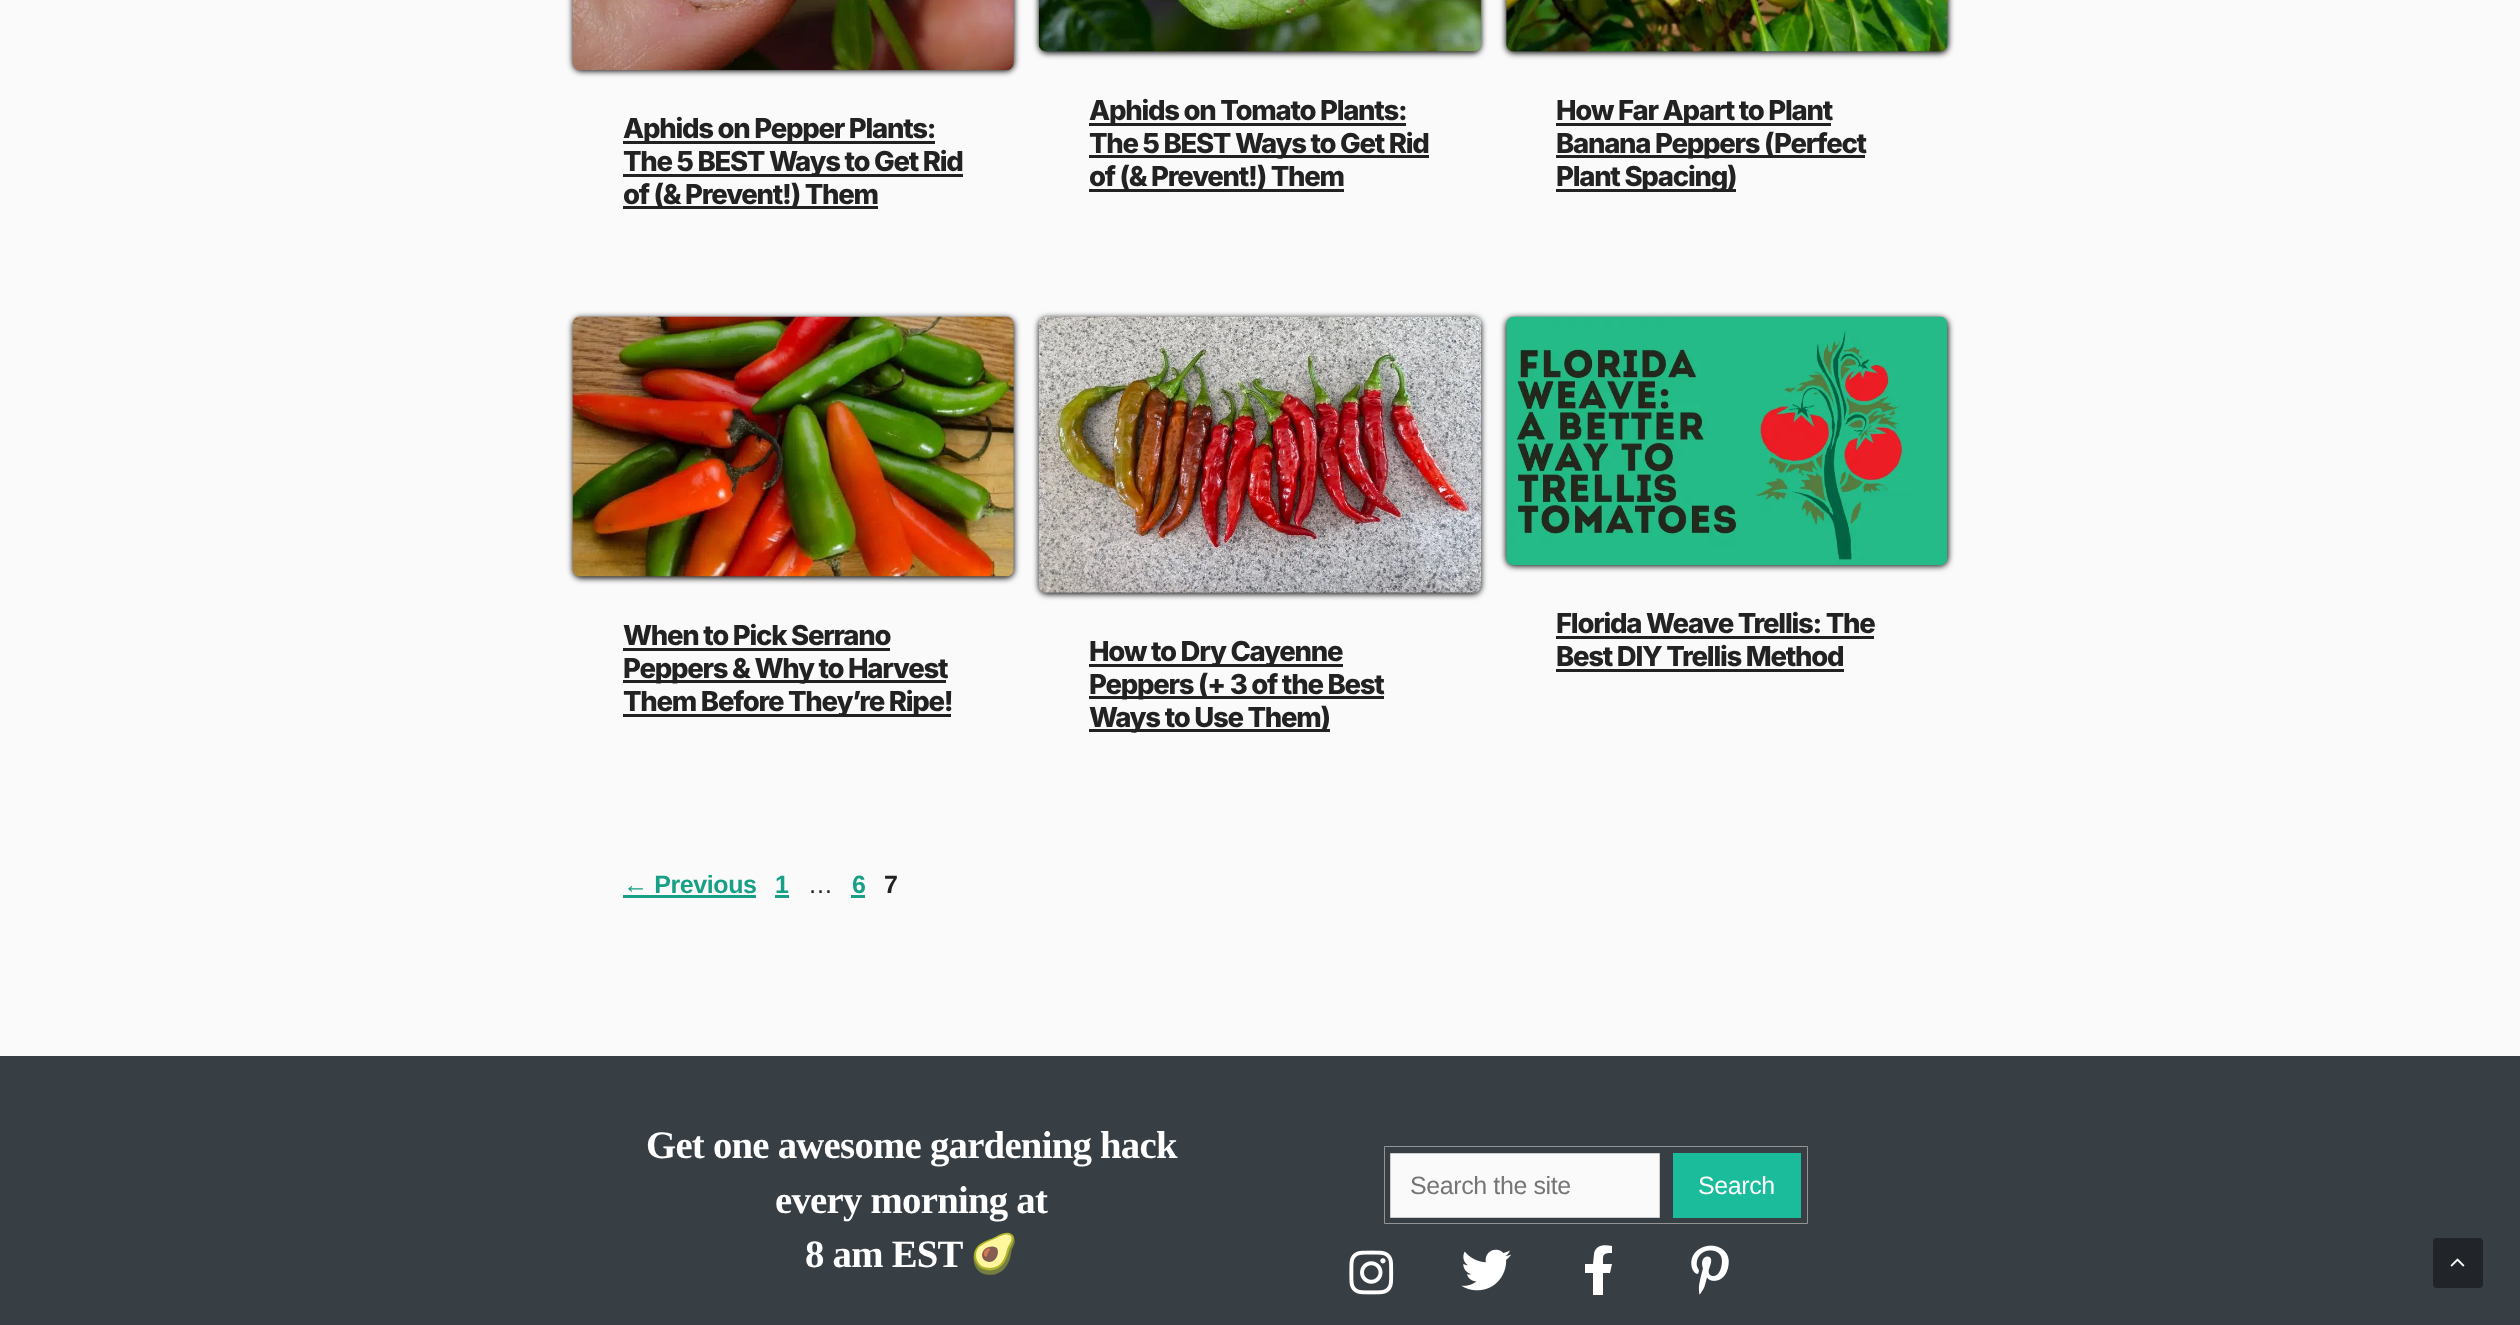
<svg xmlns="http://www.w3.org/2000/svg" width="2520" height="1325" viewBox="0 0 2520 1325">
  <rect width="100%" height="100%" fill="#fafafa"/>
  <rect x="573" y="-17" width="441" height="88" rx="8" fill="#000001" filter="blur(3px)"/>
  <image x="572" y="0" width="442" height="71" href="img/1.png"/>
  <path d="M623 141h312v3H623z" fill="#222"/>
  <path d="M623 174h340v3H623z" fill="#222"/>
  <path d="M623 206h255v3H623z" fill="#222"/>
  <rect x="1039" y="-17" width="442" height="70" rx="8" fill="#000001" filter="blur(3px)"/>
  <image x="1038" y="0" width="444" height="52" href="img/2.png"/>
  <path d="M1089 123h317v3H1089z" fill="#222"/>
  <path d="M1089 155h340v3H1089z" fill="#222"/>
  <path d="M1089 189h255v3H1089z" fill="#222"/>
  <rect x="1506" y="-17" width="442" height="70" rx="8" fill="#000001" filter="blur(3px)"/>
  <image x="1506" y="0" width="442" height="52" href="img/3.png"/>
  <path d="M1556 123h275v3H1556z" fill="#222"/>
  <path d="M1556 155h309v3H1556z" fill="#222"/>
  <path d="M1556 189h180v3H1556z" fill="#222"/>
  <rect x="573" y="318" width="441" height="260" rx="8" fill="#000001" filter="blur(3px)"/>
  <image x="572" y="316" width="442" height="261" href="img/4.png"/>
  <path d="M623 648h267v3H623z" fill="#222"/>
  <path d="M623 680h323v3H623z" fill="#222"/>
  <path d="M623 714h328v3H623z" fill="#222"/>
  <rect x="1039" y="318" width="442" height="276" rx="8" fill="#000001" filter="blur(3px)"/>
  <image x="1038" y="316" width="444" height="277" href="img/5.png"/>
  <path d="M1089 664h254v3H1089z" fill="#222"/>
  <path d="M1089 696h295v3H1089z" fill="#222"/>
  <path d="M1089 729h241v3H1089z" fill="#222"/>
  <rect x="1506" y="318" width="442" height="248" rx="8" fill="#000001" filter="blur(3px)"/>
  <image x="1506" y="316" width="442" height="250" href="img/6.png"/>
  <path d="M1556 636h318v3H1556z" fill="#222"/>
  <path d="M1556 669h288v3H1556z" fill="#222"/>
  <path d="M623 895h133v3H623z" fill="#17a085"/>
  <path d="M775 895h14v3H775z" fill="#17a085"/>
  <path d="M851 895h14v3H851z" fill="#17a085"/>
  <path d="M0 1056h2520v269H0z" fill="#373e44"/>
  <path d="M1384.5 1146.5h423v77H1384.5z" fill="none" stroke="#949494"/>
  <path d="M1390.5 1153.5h269v64H1390.5z" fill="#fafafa" stroke="#ccc"/>
  <path d="M1673 1153h128v65H1673z" fill="#1abc9c"/>
  <image x="1349" y="1250" width="45" height="45" href="img/7.png"/>
  <image x="1461" y="1249" width="50" height="42" href="img/8.png"/>
  <path d="M1610 1273L1612 1264H1603C1603 1255 1602 1253 1612 1253V1246C1604 1244 1595 1245 1594 1254L1593 1264H1585V1273H1593V1295H1603V1273Z" fill="#fff"/>
  <image x="1691" y="1245" width="38" height="50" href="img/9.png"/>
  <rect x="2433" y="1238" width="50" height="50" rx="4" fill="#212529"/>
  <image x="2450" y="1258" width="15" height="9" href="img/10.png"/>
  <g font-family="Inter" font-size="27.5" font-weight="800" letter-spacing="-1.25" fill="#222">
    <text x="623" y="138">Aphids on Pepper Plants:</text>
    <text x="623" y="171">The 5 BEST Ways to Get Rid</text>
    <text x="623" y="204">of (&amp; Prevent!) Them</text>
    <text x="1089" y="120">Aphids on Tomato Plants:</text>
    <text x="1089" y="153">The 5 BEST Ways to Get Rid</text>
    <text x="1089" y="186">of (&amp; Prevent!) Them</text>
    <text x="1556" y="120">How Far Apart to Plant</text>
    <text x="1556" y="153">Banana Peppers (Perfect</text>
    <text x="1556" y="186">Plant Spacing)</text>
    <text x="623" y="645">When to Pick Serrano</text>
    <text x="623" y="678">Peppers &amp; Why to Harvest</text>
    <text x="623" y="711">Them Before They’re Ripe!</text>
    <text x="1089" y="661">How to Dry Cayenne</text>
    <text x="1089" y="694">Peppers (+ 3 of the Best</text>
    <text x="1089" y="727">Ways to Use Them)</text>
    <text x="1556" y="633">Florida Weave Trellis: The</text>
    <text x="1556" y="666">Best DIY Trellis Method</text>
  </g>
  <g font-family="Liberation Sans" font-size="25" font-weight="bold" letter-spacing="-0.4" fill="#17a085">
    <text x="623" y="893">← Previous</text>
    <text x="775" y="893">1</text>
  </g>
  <text x="808" y="893" font-family="Liberation Sans" font-size="25" letter-spacing="-0.4" fill="#222">…</text>
  <text x="852" y="893" font-family="Liberation Sans" font-size="25" font-weight="bold" letter-spacing="-0.4" fill="#17a085">6</text>
  <text x="884" y="893" font-family="Liberation Sans" font-size="25" font-weight="bold" letter-spacing="-0.4" fill="#222">7</text>
  <g font-family="Liberation Serif" font-size="38.75" font-weight="bold" letter-spacing="-0.75" fill="#fff">
    <text x="646" y="1158">Get one awesome gardening hack</text>
    <text x="775" y="1213">every morning at</text>
    <text x="805" y="1267">8 am EST</text>
  </g>
  <text x="970" y="1267" font-family="Noto Color Emoji" font-size="38.75" font-weight="bold" letter-spacing="-0.75" fill="#fff">🥑</text>
  <text x="1410" y="1194" font-family="Liberation Sans" font-size="25" letter-spacing="-0.4" fill="#757575">Search the site</text>
  <text x="1698" y="1194" font-family="Liberation Sans" font-size="25" letter-spacing="-0.4" fill="#fff">Search</text>
</svg>
